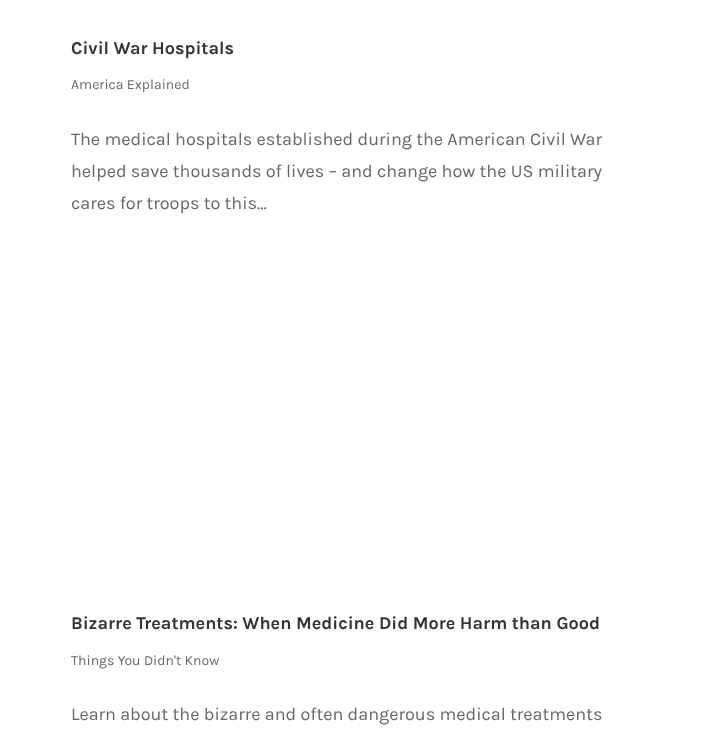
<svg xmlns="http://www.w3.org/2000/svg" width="714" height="747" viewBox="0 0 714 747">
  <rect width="100%" height="100%" fill="#fff"/>
  <text x="71" y="54" font-family="Karla" font-size="18" font-weight="bold" fill="#333">Civil War Hospitals</text>
  <text x="71" y="89" font-family="Karla" font-size="14" fill="#666">America Explained</text>
  <g font-family="Karla" font-size="18" fill="#666">
    <text x="71" y="145">The medical hospitals established during the American Civil War</text>
    <text x="71" y="177">helped save thousands of lives – and change how the US military</text>
    <text x="71" y="209">cares for troops to this...</text>
  </g>
  <text x="71" y="629" font-family="Karla" font-size="18" font-weight="bold" fill="#333">Bizarre Treatments: When Medicine Did More Harm than Good</text>
  <text x="71" y="665" font-family="Karla" font-size="14" fill="#666">Things You Didn't Know</text>
  <text x="71" y="720" font-family="Karla" font-size="18" fill="#666">Learn about the bizarre and often dangerous medical treatments</text>
</svg>
